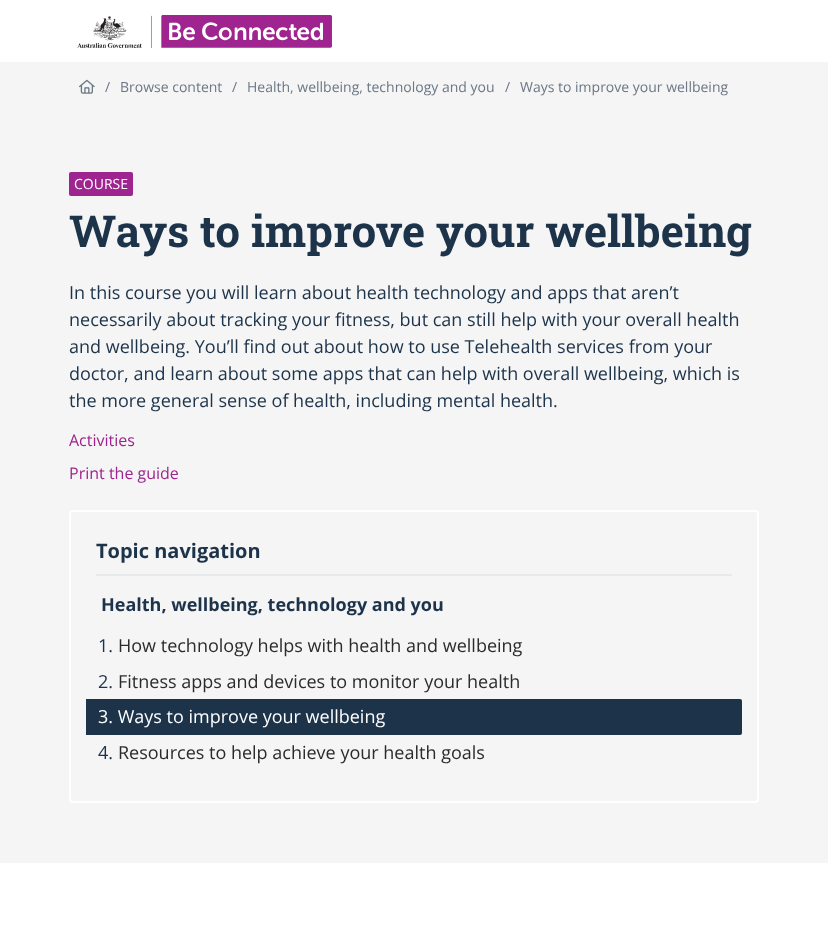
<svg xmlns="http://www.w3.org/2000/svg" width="828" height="927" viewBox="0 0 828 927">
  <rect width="100%" height="100%" fill="#fff"/>
  <image x="77" y="15" width="255" height="33" href="img/1.png"/>
  <path d="M0 62h828v801H0z" fill="#f5f5f5"/>
  <image x="79" y="79" width="16" height="15" href="img/2.png"/>
  <rect x="69" y="172" width="64" height="24" rx="2" fill="#9e248f"/>
  <rect x="70" y="511" width="688" height="291" rx="3" fill="none" stroke="#fff" stroke-width="2"/>
  <path d="M96 574h636v2H96z" fill="#e7eaec"/>
  <rect x="118" y="699" width="624" height="36" rx="2" fill="#1c334a"/>
  <path d="M86 699h34v36H86z" fill="#1c334a"/>
  <g font-family="Open Sans" font-size="14" fill="#6b7785">
    <text x="105" y="92">/</text>
    <text x="120" y="92">Browse content</text>
    <text x="232" y="92">/</text>
    <text x="247" y="92">Health, wellbeing, technology and you</text>
    <text x="505" y="92">/</text>
    <text x="520" y="92">Ways to improve your wellbeing</text>
  </g>
  <text x="74" y="189" font-family="Open Sans" font-size="14" fill="#fff">COURSE</text>
  <text x="69" y="247" font-family="Roboto Slab" font-size="44" font-weight="bold" fill="#1c334a">Ways to improve your wellbeing</text>
  <g font-family="Open Sans" font-size="18" fill="#1c334a">
    <text x="69" y="299">In this course you will learn about health technology and apps that aren’t</text>
    <text x="69" y="326">necessarily about tracking your fitness, but can still help with your overall health</text>
    <text x="69" y="353">and wellbeing. You’ll find out about how to use Telehealth services from your</text>
    <text x="69" y="380">doctor, and learn about some apps that can help with overall wellbeing, which is</text>
    <text x="69" y="407">the more general sense of health, including mental health.</text>
  </g>
  <g font-family="Open Sans" font-size="16" fill="#9e248f">
    <text x="69" y="446">Activities</text>
    <text x="69" y="479">Print the guide</text>
  </g>
  <text x="96" y="558" font-family="Open Sans" font-size="20" font-weight="bold" fill="#1c334a">Topic navigation</text>
  <text x="101" y="611" font-family="Open Sans" font-size="18" font-weight="bold" fill="#1c334a">Health, wellbeing, technology and you</text>
  <text x="98" y="652" font-family="Open Sans" font-size="18" fill="#1c334a">1.</text>
  <text x="118" y="652" font-family="Open Sans" font-size="18" fill="#2b2b2b">How technology helps with health and wellbeing</text>
  <text x="98" y="688" font-family="Open Sans" font-size="18" fill="#1c334a">2.</text>
  <text x="118" y="688" font-family="Open Sans" font-size="18" fill="#2b2b2b">Fitness apps and devices to monitor your health</text>
  <text x="98" y="723" font-family="Open Sans" font-size="18" fill="#fff">3. Ways to improve your wellbeing</text>
  <text x="98" y="759" font-family="Open Sans" font-size="18" fill="#1c334a">4.</text>
  <text x="118" y="759" font-family="Open Sans" font-size="18" fill="#2b2b2b">Resources to help achieve your health goals</text>
</svg>
